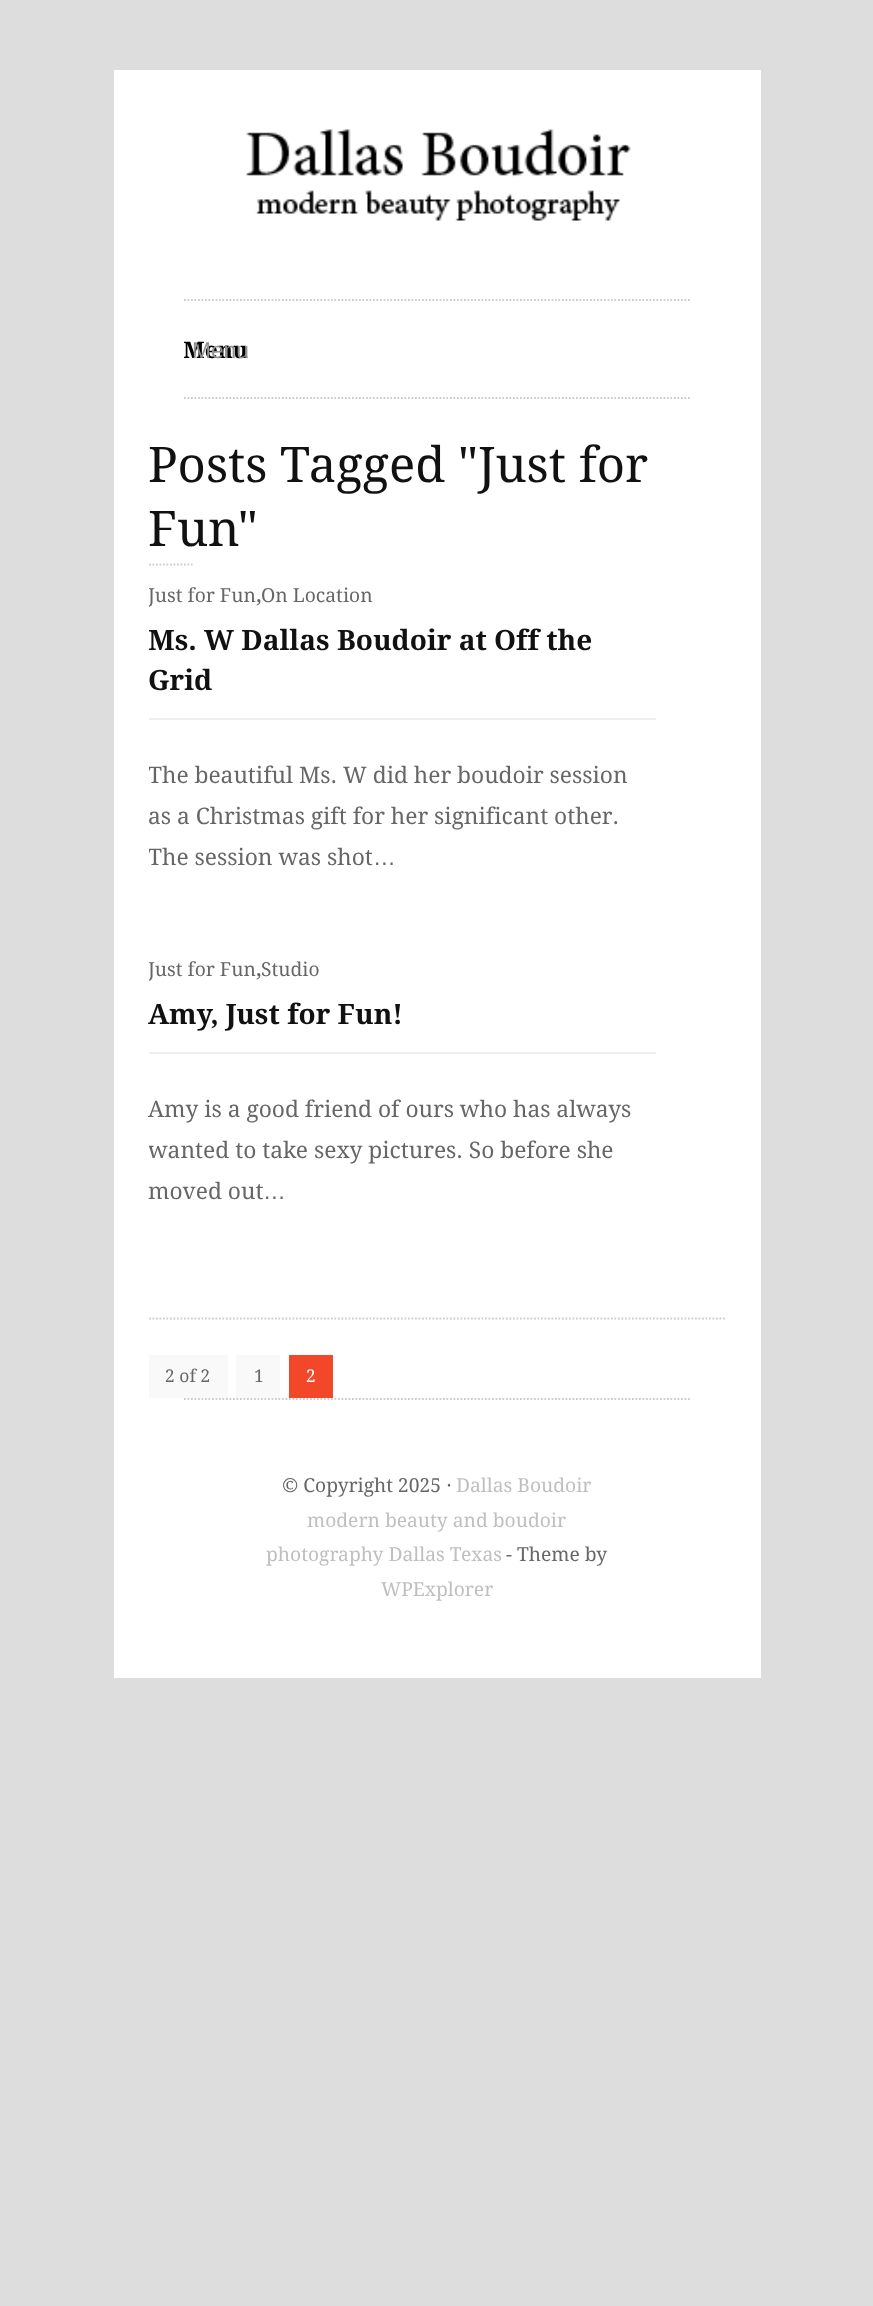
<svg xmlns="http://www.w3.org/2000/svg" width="873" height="2306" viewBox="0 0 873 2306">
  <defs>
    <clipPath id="clip1"><path d="M184 301h507v96H184z"/></clipPath>
    <clipPath id="clip2"><path d="M149 574h507v305H149z"/></clipPath>
    <clipPath id="clip3"><path d="M149 949h507v264H149z"/></clipPath>
  </defs>
  <rect width="100%" height="100%" fill="#ddd"/>
  <path d="M114 70h647v1608H114z" fill="#fff"/>
  <image x="246" y="129" width="385" height="92" href="img/1.png"/>
  <path d="M184 300H691" fill="none" stroke="#ccc" stroke-width="1.8" stroke-dasharray="1.75 1.75"/>
  <path d="M184 398H691" fill="none" stroke="#ccc" stroke-width="1.8" stroke-dasharray="1.75 1.75"/>
  <path d="M149 564.5H192.5" fill="none" stroke="#ccc" stroke-width="1.8" stroke-dasharray="1.75 1.75"/>
  <path d="M149 718h507v2H149z" fill="#eee"/>
  <path d="M149 1052h507v2H149z" fill="#eee"/>
  <path d="M149 1318.5H726" fill="none" stroke="#ccc" stroke-width="1.8" stroke-dasharray="1.75 1.75"/>
  <path d="M149 1355h79v43H149z" fill="#f9f9f9"/>
  <path d="M236 1355h44v43H236z" fill="#f9f9f9"/>
  <path d="M289 1355h44v43H289z" fill="#f3472a"/>
  <path d="M184 1399H691" fill="none" stroke="#ccc" stroke-width="1.8" stroke-dasharray="1.75 1.75"/>
  <g clip-path="url(#clip1)">
    <text x="183" y="358" font-family="Droid Serif" font-size="22.75" font-weight="bold" fill="#000">Menu</text>
  </g>
  <text x="192" y="358" font-family="Liberation Sans" font-size="22.75" fill="#919191">Menu</text>
  <g font-family="Droid Serif" font-size="49" fill="#111">
    <text x="148" y="482">Posts Tagged "Just for</text>
    <text x="148" y="546">Fun"</text>
  </g>
  <g clip-path="url(#clip2)">
    <text x="148" y="602" font-family="Droid Serif" font-size="19.25" fill="#666">Just for Fun</text>
  </g>
  <text x="256" y="602" font-family="Droid Serif" font-size="22.75" fill="#666">,</text>
  <text x="261" y="602" font-family="Droid Serif" font-size="19.25" fill="#666">On Location</text>
  <g clip-path="url(#clip2)">
    <text x="148" y="650" font-family="Droid Serif" font-size="28" font-weight="bold" fill="#111">Ms. W Dallas Boudoir at Off the</text>
  </g>
  <text x="148" y="690" font-family="Droid Serif" font-size="28" font-weight="bold" fill="#111">Grid</text>
  <g clip-path="url(#clip2)">
    <text x="148" y="783" font-family="Droid Serif" font-size="22.75" fill="#666">The beautiful Ms. W did her boudoir session</text>
  </g>
  <text x="148" y="824" font-family="Droid Serif" font-size="22.75" fill="#666">as a Christmas gift for her significant other.</text>
  <g clip-path="url(#clip2)">
    <text x="148" y="865" font-family="Droid Serif" font-size="22.75" fill="#666">The session was shot</text>
  </g>
  <text x="373" y="865" font-family="Liberation Sans" font-size="22.75" fill="#666">…</text>
  <g clip-path="url(#clip3)">
    <text x="148" y="976" font-family="Droid Serif" font-size="19.25" fill="#666">Just for Fun</text>
  </g>
  <text x="256" y="976" font-family="Droid Serif" font-size="22.75" fill="#666">,</text>
  <text x="261" y="976" font-family="Droid Serif" font-size="19.25" fill="#666">Studio</text>
  <text x="148" y="1024" font-family="Droid Serif" font-size="28" font-weight="bold" fill="#111">Amy, Just for Fun!</text>
  <text x="148" y="1117" font-family="Droid Serif" font-size="22.75" fill="#666">Amy is a good friend of ours who has always</text>
  <g clip-path="url(#clip3)">
    <text x="148" y="1158" font-family="Droid Serif" font-size="22.75" fill="#666">wanted to take sexy pictures. So before she</text>
  </g>
  <text x="148" y="1199" font-family="Droid Serif" font-size="22.75" fill="#666">moved out</text>
  <text x="263" y="1199" font-family="Liberation Sans" font-size="22.75" fill="#666">…</text>
  <g font-family="Droid Serif" font-size="17.5" fill="#666">
    <text x="165" y="1382">2 of 2</text>
    <text x="254" y="1382">1</text>
  </g>
  <text x="306" y="1382" font-family="Droid Serif" font-size="17.5" fill="#fff">2</text>
  <text x="282" y="1492" font-family="Droid Serif" font-size="19.25" fill="#666">© Copyright 2025 ·</text>
  <g font-family="Droid Serif" font-size="19.25" fill="#bfbfbf">
    <text x="456" y="1492">Dallas Boudoir</text>
    <text x="307" y="1527">modern beauty and boudoir</text>
    <text x="266" y="1561">photography Dallas Texas</text>
  </g>
  <text x="506" y="1561" font-family="Droid Serif" font-size="19.25" fill="#666">- Theme by</text>
  <text x="381" y="1596" font-family="Droid Serif" font-size="19.25" fill="#bfbfbf">WPExplorer</text>
</svg>
